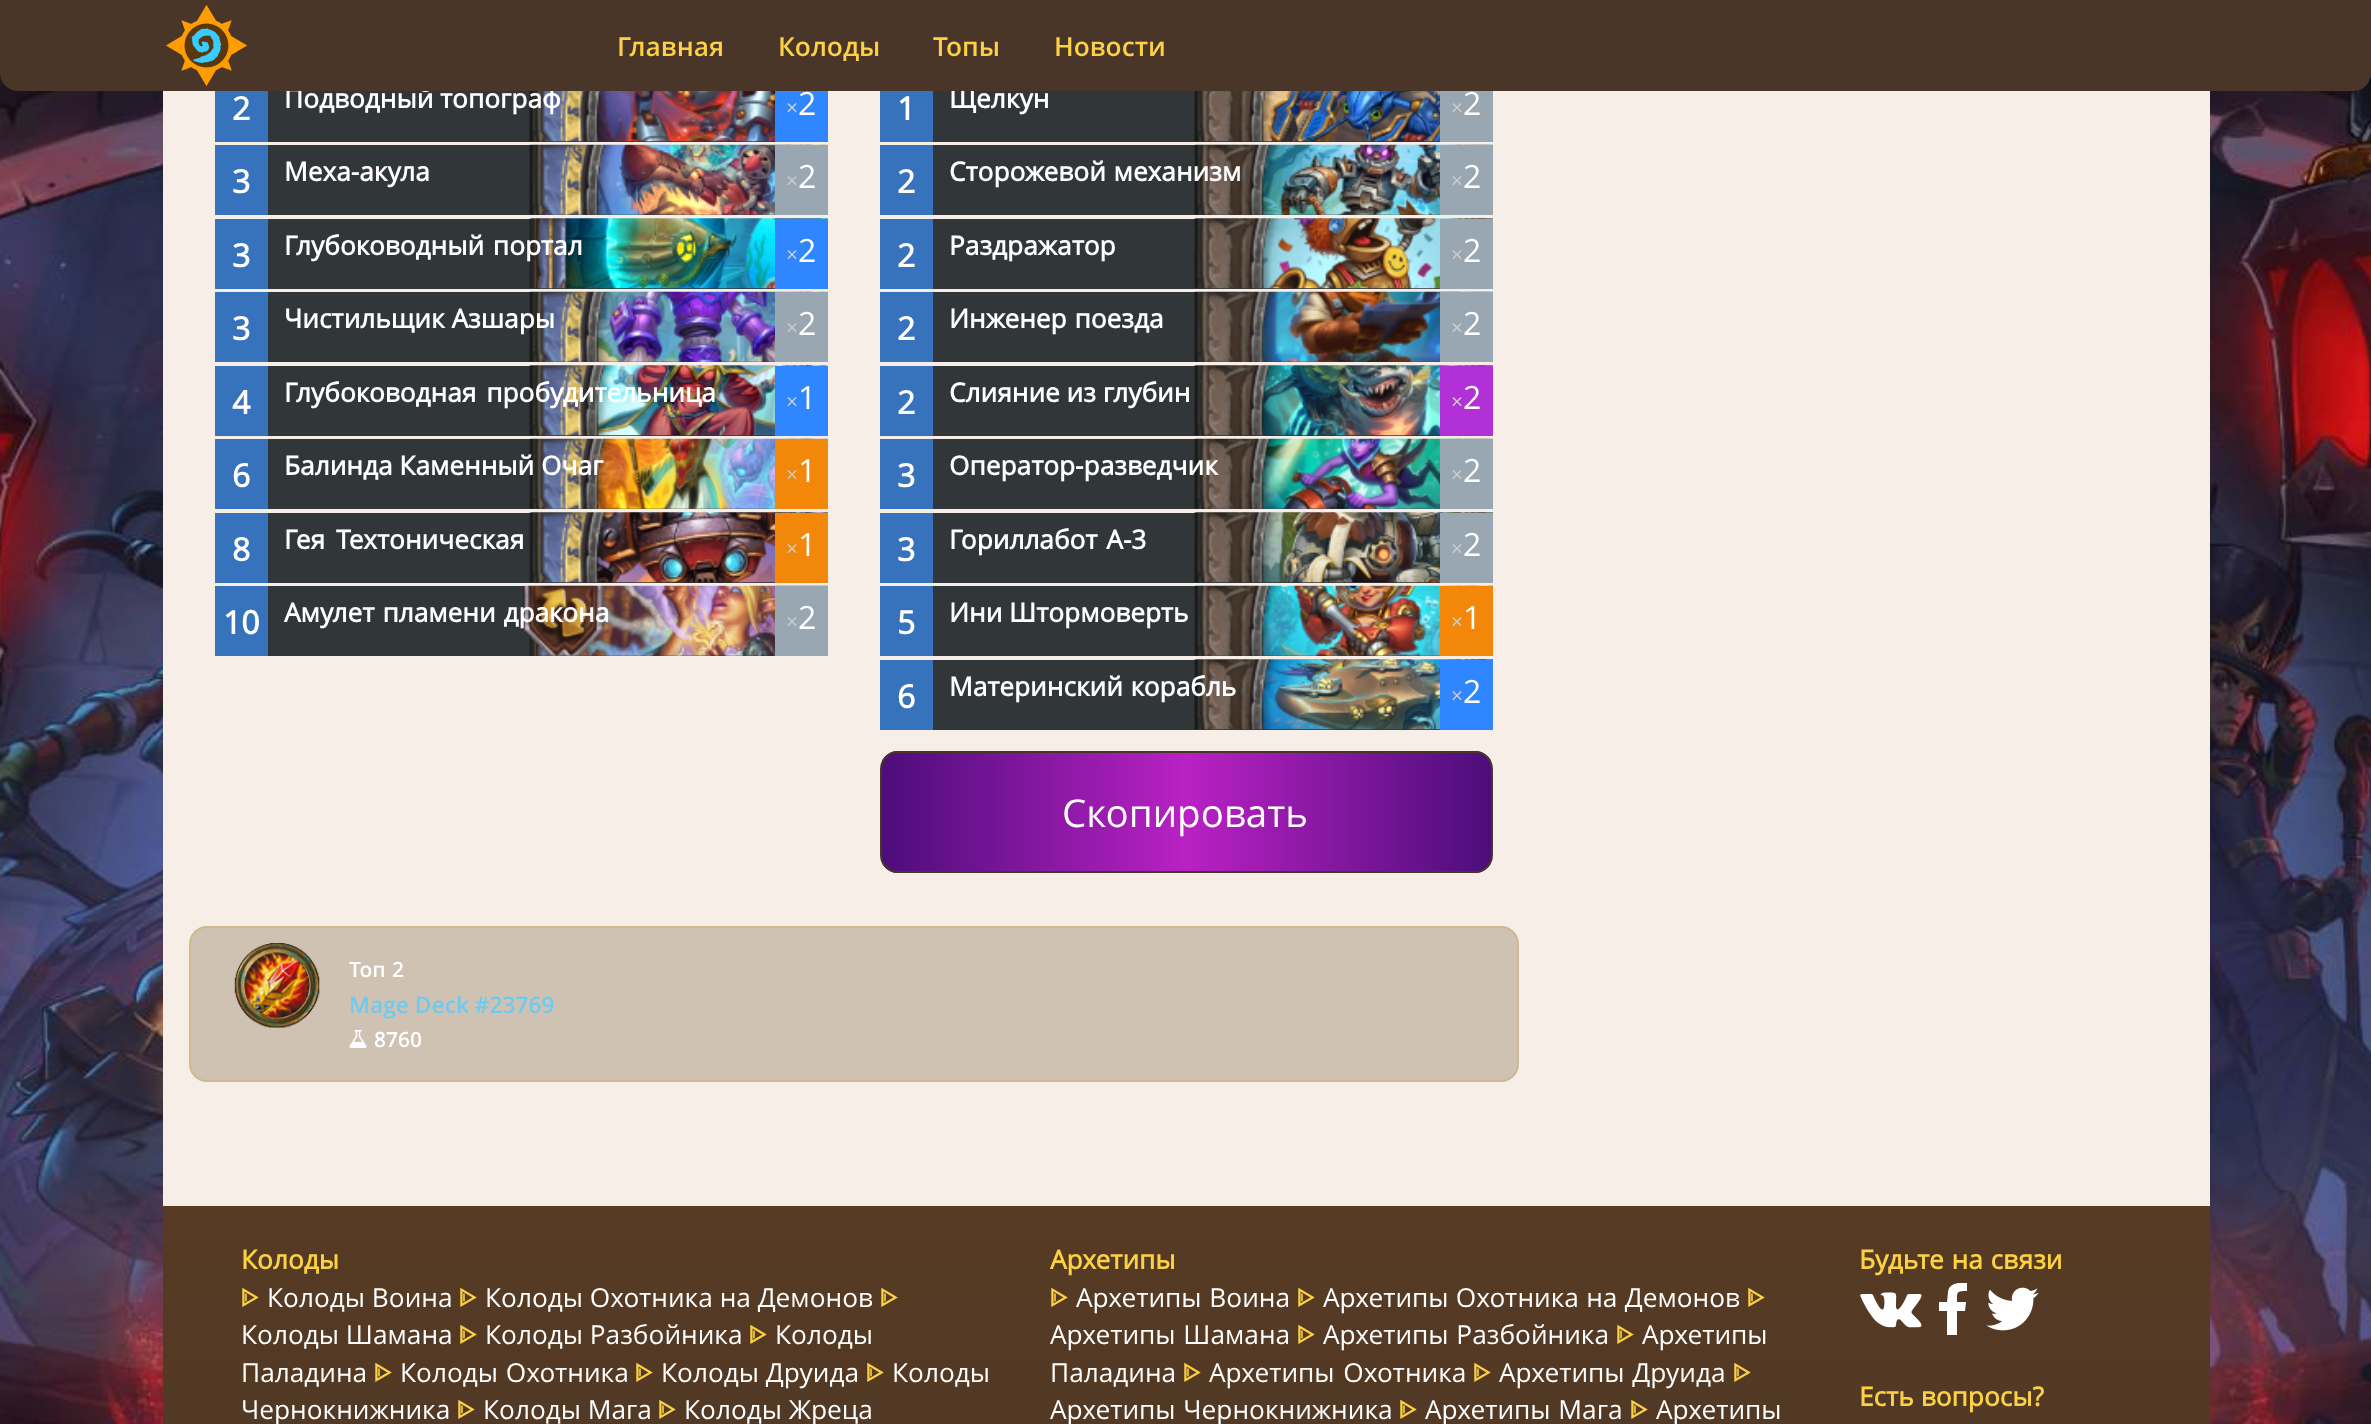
<svg xmlns="http://www.w3.org/2000/svg" width="2371" height="1424" viewBox="0 0 2371 1424">
  <defs>
    <clipPath id="clip1"><rect x="880" y="751" width="613" height="122" rx="18"/></clipPath>
    <linearGradient id="g1" gradientUnits="userSpaceOnUse" x1="882" y1="812" x2="1491" y2="812"><stop offset="0" stop-color="#4c0d7a"/><stop offset="0.5" stop-color="#b921c4"/><stop offset="1" stop-color="#4c0d7a"/></linearGradient>
    <linearGradient id="g2" gradientUnits="userSpaceOnUse" x1="1187" y1="1206" x2="1187" y2="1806"><stop offset="0" stop-color="#573b23"/><stop offset="1" stop-color="#493629"/></linearGradient>
    <clipPath id="clip2"><path d="M1927 1283h52v52H1927z"/></clipPath>
  </defs>
  <rect width="100%" height="100%" fill="#fff"/>
  <image x="0" y="73" width="2371" height="1351" href="img/2.png"/>
  <path d="M163 91h2047v1115H163z" fill="#f7eee7"/>
  <path d="M268 91h507v51H268z" fill="#313639"/>
  <path d="M215 91h53v51H215z" fill="#3773bc"/>
  <image x="529" y="91" width="246" height="51" href="img/3.png"/>
  <path d="M775 91h53v51H775z" fill="#2f86fe"/>
  <path d="M268 145h507v70H268z" fill="#313639"/>
  <image x="529" y="144" width="299" height="71" href="img/4.png"/>
  <path d="M215 145h53v70H215z" fill="#3773bc"/>
  <path d="M775 145h53v70H775z" fill="#98a7b1"/>
  <path d="M268 219h507v70H268z" fill="#313639"/>
  <image x="529" y="218" width="299" height="71" href="img/5.png"/>
  <path d="M215 219h53v70H215z" fill="#3773bc"/>
  <path d="M775 219h53v70H775z" fill="#2f86fe"/>
  <path d="M268 292h507v70H268z" fill="#313639"/>
  <image x="529" y="291" width="299" height="71" href="img/6.png"/>
  <path d="M215 292h53v70H215z" fill="#3773bc"/>
  <path d="M775 292h53v70H775z" fill="#98a7b1"/>
  <path d="M268 366h507v70H268z" fill="#313639"/>
  <image x="529" y="365" width="299" height="71" href="img/7.png"/>
  <path d="M215 366h53v70H215z" fill="#3773bc"/>
  <path d="M775 366h53v70H775z" fill="#2f86fe"/>
  <path d="M268 439h507v70H268z" fill="#313639"/>
  <image x="529" y="438" width="299" height="71" href="img/8.png"/>
  <path d="M215 439h53v70H215z" fill="#3773bc"/>
  <path d="M775 439h53v70H775z" fill="#f2870a"/>
  <path d="M268 513h507v70H268z" fill="#313639"/>
  <image x="529" y="512" width="299" height="71" href="img/9.png"/>
  <path d="M215 513h53v70H215z" fill="#3773bc"/>
  <path d="M775 513h53v70H775z" fill="#f2870a"/>
  <path d="M268 586h507v70H268z" fill="#313639"/>
  <image x="523" y="585" width="305" height="71" href="img/10.png"/>
  <path d="M215 586h53v70H215z" fill="#3773bc"/>
  <path d="M775 586h53v70H775z" fill="#98a7b1"/>
  <path d="M933 91h507v51H933z" fill="#313639"/>
  <path d="M880 91h53v51H880z" fill="#3773bc"/>
  <image x="1194" y="91" width="246" height="51" href="img/11.png"/>
  <path d="M1440 91h53v51H1440z" fill="#98a7b1"/>
  <path d="M933 145h507v70H933z" fill="#313639"/>
  <image x="1194" y="144" width="299" height="71" href="img/12.png"/>
  <path d="M880 145h53v70H880z" fill="#3773bc"/>
  <path d="M1440 145h53v70H1440z" fill="#98a7b1"/>
  <path d="M933 219h507v70H933z" fill="#313639"/>
  <image x="1194" y="218" width="299" height="71" href="img/13.png"/>
  <path d="M880 219h53v70H880z" fill="#3773bc"/>
  <path d="M1440 219h53v70H1440z" fill="#98a7b1"/>
  <path d="M933 292h507v70H933z" fill="#313639"/>
  <image x="1194" y="291" width="299" height="71" href="img/14.png"/>
  <path d="M880 292h53v70H880z" fill="#3773bc"/>
  <path d="M1440 292h53v70H1440z" fill="#98a7b1"/>
  <path d="M933 366h507v70H933z" fill="#313639"/>
  <image x="1194" y="365" width="299" height="71" href="img/15.png"/>
  <path d="M880 366h53v70H880z" fill="#3773bc"/>
  <path d="M1440 366h53v70H1440z" fill="#b231d6"/>
  <path d="M933 439h507v70H933z" fill="#313639"/>
  <image x="1194" y="438" width="299" height="71" href="img/16.png"/>
  <path d="M880 439h53v70H880z" fill="#3773bc"/>
  <path d="M1440 439h53v70H1440z" fill="#98a7b1"/>
  <path d="M933 513h507v70H933z" fill="#313639"/>
  <image x="1194" y="512" width="299" height="71" href="img/17.png"/>
  <path d="M880 513h53v70H880z" fill="#3773bc"/>
  <path d="M1440 513h53v70H1440z" fill="#98a7b1"/>
  <path d="M933 586h507v70H933z" fill="#313639"/>
  <image x="1194" y="585" width="299" height="71" href="img/18.png"/>
  <path d="M880 586h53v70H880z" fill="#3773bc"/>
  <path d="M1440 586h53v70H1440z" fill="#f2870a"/>
  <path d="M933 660h507v70H933z" fill="#313639"/>
  <image x="1194" y="659" width="299" height="71" href="img/19.png"/>
  <path d="M880 660h53v70H880z" fill="#3773bc"/>
  <path d="M1440 660h53v70H1440z" fill="#2f86fe"/>
  <g clip-path="url(#clip1)">
    <path d="M882 751h609v122H882z" fill="url(#g1)"/>
  </g>
  <rect x="881" y="752" width="611" height="120" rx="17" fill="none" stroke="#493629" stroke-width="2"/>
  <rect x="190" y="927" width="1328" height="154" rx="17" fill="#d0c2b3" stroke="#cdba8f" stroke-width="2"/>
  <image x="234" y="943" width="86" height="85" href="img/20.png"/>
  <image x="349" y="1030" width="18" height="18" href="img/21.png"/>
  <path d="M163 1206h2047v218H163z" fill="url(#g2)"/>
  <image x="1860" y="1292" width="62" height="36" href="img/22.png"/>
  <g clip-path="url(#clip2)">
    <path d="M1957 1335V1311H1965L1966 1302H1957C1957 1292 1956 1291 1967 1291V1283C1959 1282 1949 1283 1948 1292L1947 1302H1939V1311H1947V1335Z" fill="#fff"/>
  </g>
  <image x="1986" y="1287" width="53" height="44" href="img/23.png"/>
  <text x="232" y="120" font-family="Open Sans" font-size="32" font-weight="bold" fill="#fff">2</text>
  <text x="284" y="108" font-family="Open Sans" font-size="26.25" font-weight="bold" fill="#fff">Подводный топограф</text>
  <text x="786" y="115" font-family="Open Sans" font-size="21" fill="#ccc">×</text>
  <text x="798" y="115" font-family="Open Sans" font-size="32" fill="#fff">2</text>
  <text x="284" y="181" font-family="Open Sans" font-size="26.25" font-weight="bold" fill="#fff">Меха-акула</text>
  <text x="232" y="193" font-family="Open Sans" font-size="32" font-weight="bold" fill="#fff">3</text>
  <text x="786" y="188" font-family="Open Sans" font-size="21" fill="#ccc">×</text>
  <text x="798" y="188" font-family="Open Sans" font-size="32" fill="#fff">2</text>
  <text x="284" y="255" word-spacing="2" font-family="Open Sans" font-size="26.25" font-weight="bold" fill="#fff">Глубоководный портал</text>
  <text x="232" y="267" font-family="Open Sans" font-size="32" font-weight="bold" fill="#fff">3</text>
  <text x="786" y="262" font-family="Open Sans" font-size="21" fill="#ccc">×</text>
  <text x="798" y="262" font-family="Open Sans" font-size="32" fill="#fff">2</text>
  <text x="284" y="328" font-family="Open Sans" font-size="26.25" font-weight="bold" fill="#fff">Чистильщик Азшары</text>
  <text x="232" y="340" font-family="Open Sans" font-size="32" font-weight="bold" fill="#fff">3</text>
  <text x="786" y="335" font-family="Open Sans" font-size="21" fill="#ccc">×</text>
  <text x="798" y="335" font-family="Open Sans" font-size="32" fill="#fff">2</text>
  <text x="232" y="414" font-family="Open Sans" font-size="32" font-weight="bold" fill="#fff">4</text>
  <text x="284" y="402" word-spacing="3" font-family="Open Sans" font-size="26.25" font-weight="bold" fill="#fff">Глубоководная пробудительница</text>
  <text x="786" y="409" font-family="Open Sans" font-size="21" fill="#ccc">×</text>
  <text x="798" y="409" font-family="Open Sans" font-size="32" fill="#fff">1</text>
  <text x="284" y="475" font-family="Open Sans" font-size="26.25" font-weight="bold" fill="#fff">Балинда Каменный Очаг</text>
  <text x="232" y="487" font-family="Open Sans" font-size="32" font-weight="bold" fill="#fff">6</text>
  <text x="786" y="482" font-family="Open Sans" font-size="21" fill="#ccc">×</text>
  <text x="798" y="482" font-family="Open Sans" font-size="32" fill="#fff">1</text>
  <text x="284" y="549" word-spacing="4" font-family="Open Sans" font-size="26.25" font-weight="bold" fill="#fff">Гея Техтоническая</text>
  <text x="232" y="561" font-family="Open Sans" font-size="32" font-weight="bold" fill="#fff">8</text>
  <text x="786" y="556" font-family="Open Sans" font-size="21" fill="#ccc">×</text>
  <text x="798" y="556" font-family="Open Sans" font-size="32" fill="#fff">1</text>
  <text x="284" y="622" word-spacing="1" font-family="Open Sans" font-size="26.25" font-weight="bold" fill="#fff">Амулет пламени дракона</text>
  <text x="223" y="634" font-family="Open Sans" font-size="32" font-weight="bold" fill="#fff">10</text>
  <text x="786" y="629" font-family="Open Sans" font-size="21" fill="#ccc">×</text>
  <text x="798" y="629" font-family="Open Sans" font-size="32" fill="#fff">2</text>
  <text x="897" y="120" font-family="Open Sans" font-size="32" font-weight="bold" fill="#fff">1</text>
  <text x="949" y="108" font-family="Open Sans" font-size="26.25" font-weight="bold" fill="#fff">Щелкун</text>
  <path d="M1 1H2370V73C2370 82.5 2362.5 90 2353 90H18C8.5 90 1 82.5 1 73Z" fill="#493629" stroke="#493629" stroke-width="2"/>
  <image x="166" y="5" width="81" height="81" href="img/1.png"/>
  <g font-family="Open Sans" font-size="26.25" font-weight="600" fill="#fcd144">
    <text x="1054" y="56">Новости</text>
    <text x="933" y="56">Топы</text>
    <text x="778" y="56">Колоды</text>
    <text x="617" y="56">Главная</text>
  </g>
  <text x="1451" y="115" font-family="Open Sans" font-size="21" fill="#ccc">×</text>
  <text x="1463" y="115" font-family="Open Sans" font-size="32" fill="#fff">2</text>
  <text x="949" y="181" word-spacing="1" font-family="Open Sans" font-size="26.25" font-weight="bold" fill="#fff">Сторожевой механизм</text>
  <text x="897" y="193" font-family="Open Sans" font-size="32" font-weight="bold" fill="#fff">2</text>
  <text x="1451" y="188" font-family="Open Sans" font-size="21" fill="#ccc">×</text>
  <text x="1463" y="188" font-family="Open Sans" font-size="32" fill="#fff">2</text>
  <text x="949" y="255" font-family="Open Sans" font-size="26.25" font-weight="bold" fill="#fff">Раздражатор</text>
  <text x="897" y="267" font-family="Open Sans" font-size="32" font-weight="bold" fill="#fff">2</text>
  <text x="1451" y="262" font-family="Open Sans" font-size="21" fill="#ccc">×</text>
  <text x="1463" y="262" font-family="Open Sans" font-size="32" fill="#fff">2</text>
  <text x="949" y="328" word-spacing="1" font-family="Open Sans" font-size="26.25" font-weight="bold" fill="#fff">Инженер поезда</text>
  <text x="897" y="340" font-family="Open Sans" font-size="32" font-weight="bold" fill="#fff">2</text>
  <text x="1451" y="335" font-family="Open Sans" font-size="21" fill="#ccc">×</text>
  <text x="1463" y="335" font-family="Open Sans" font-size="32" fill="#fff">2</text>
  <text x="949" y="402" font-family="Open Sans" font-size="26.25" font-weight="bold" fill="#fff">Слияние из глубин</text>
  <text x="897" y="414" font-family="Open Sans" font-size="32" font-weight="bold" fill="#fff">2</text>
  <text x="1451" y="409" font-family="Open Sans" font-size="21" fill="#ccc">×</text>
  <text x="1463" y="409" font-family="Open Sans" font-size="32" fill="#fff">2</text>
  <text x="949" y="475" font-family="Open Sans" font-size="26.25" font-weight="bold" fill="#fff">Оператор-разведчик</text>
  <text x="897" y="487" font-family="Open Sans" font-size="32" font-weight="bold" fill="#fff">3</text>
  <text x="1451" y="482" font-family="Open Sans" font-size="21" fill="#ccc">×</text>
  <text x="1463" y="482" font-family="Open Sans" font-size="32" fill="#fff">2</text>
  <text x="949" y="549" word-spacing="2" font-family="Open Sans" font-size="26.25" font-weight="bold" fill="#fff">Гориллабот А-3</text>
  <text x="897" y="561" font-family="Open Sans" font-size="32" font-weight="bold" fill="#fff">3</text>
  <text x="1451" y="556" font-family="Open Sans" font-size="21" fill="#ccc">×</text>
  <text x="1463" y="556" font-family="Open Sans" font-size="32" fill="#fff">2</text>
  <text x="949" y="622" font-family="Open Sans" font-size="26.25" font-weight="bold" fill="#fff">Ини Штормоверть</text>
  <text x="897" y="634" font-family="Open Sans" font-size="32" font-weight="bold" fill="#fff">5</text>
  <text x="1451" y="629" font-family="Open Sans" font-size="21" fill="#ccc">×</text>
  <text x="1463" y="629" font-family="Open Sans" font-size="32" fill="#fff">1</text>
  <text x="949" y="696" word-spacing="1" font-family="Open Sans" font-size="26.25" font-weight="bold" fill="#fff">Материнский корабль</text>
  <text x="897" y="708" font-family="Open Sans" font-size="32" font-weight="bold" fill="#fff">6</text>
  <text x="1451" y="703" font-family="Open Sans" font-size="21" fill="#ccc">×</text>
  <text x="1463" y="703" font-family="Open Sans" font-size="32" fill="#fff">2</text>
  <text x="1062" y="827" font-family="Open Sans" font-size="38.5" fill="#fff">Скопировать</text>
  <text x="349" y="977" word-spacing="1" font-family="Open Sans" font-size="21" font-weight="600" fill="#fff">Топ 2</text>
  <text x="349" y="1013" font-family="Open Sans" font-size="22.75" font-weight="600" fill="#69ccf0">Mage Deck #23769</text>
  <text x="374" y="1047" font-family="Open Sans" font-size="21" font-weight="600" fill="#fff">8760</text>
  <text x="241" y="1269" font-family="Open Sans" font-size="26.25" font-weight="bold" fill="#fcd144">Колоды</text>
  <text x="241" y="1307" font-family="FreeSans" font-size="26.25" fill="#fcd144">ᐈ</text>
  <text x="267" y="1307" font-family="Open Sans" font-size="26.25" fill="#fff">Колоды Воина</text>
  <text x="459" y="1307" font-family="FreeSans" font-size="26.25" fill="#fcd144">ᐈ</text>
  <text x="485" y="1307" font-family="Open Sans" font-size="26.25" fill="#fff">Колоды Охотника на Демонов</text>
  <text x="880" y="1307" font-family="FreeSans" font-size="26.25" fill="#fcd144">ᐈ</text>
  <text x="241" y="1344" font-family="Open Sans" font-size="26.25" fill="#fff">Колоды Шамана</text>
  <text x="459" y="1344" font-family="FreeSans" font-size="26.25" fill="#fcd144">ᐈ</text>
  <text x="485" y="1344" font-family="Open Sans" font-size="26.25" fill="#fff">Колоды Разбойника</text>
  <text x="749" y="1344" font-family="FreeSans" font-size="26.25" fill="#fcd144">ᐈ</text>
  <g font-family="Open Sans" font-size="26.25" fill="#fff">
    <text x="775" y="1344">Колоды</text>
    <text x="241" y="1382">Паладина</text>
  </g>
  <text x="374" y="1382" font-family="FreeSans" font-size="26.25" fill="#fcd144">ᐈ</text>
  <text x="400" y="1382" word-spacing="1" font-family="Open Sans" font-size="26.25" fill="#fff">Колоды Охотника</text>
  <text x="635" y="1382" font-family="FreeSans" font-size="26.25" fill="#fcd144">ᐈ</text>
  <text x="661" y="1382" font-family="Open Sans" font-size="26.25" fill="#fff">Колоды Друида</text>
  <text x="866" y="1382" font-family="FreeSans" font-size="26.25" fill="#fcd144">ᐈ</text>
  <g font-family="Open Sans" font-size="26.25" fill="#fff">
    <text x="892" y="1382">Колоды</text>
    <text x="241" y="1419">Чернокнижника</text>
  </g>
  <text x="457" y="1419" font-family="FreeSans" font-size="26.25" fill="#fcd144">ᐈ</text>
  <text x="483" y="1419" font-family="Open Sans" font-size="26.25" fill="#fff">Колоды Мага</text>
  <text x="658" y="1419" font-family="FreeSans" font-size="26.25" fill="#fcd144">ᐈ</text>
  <text x="684" y="1419" font-family="Open Sans" font-size="26.25" fill="#fff">Колоды Жреца</text>
  <text x="1050" y="1269" font-family="Open Sans" font-size="26.25" font-weight="bold" fill="#fcd144">Архетипы</text>
  <text x="1050" y="1307" font-family="FreeSans" font-size="26.25" fill="#fcd144">ᐈ</text>
  <text x="1076" y="1307" word-spacing="1" font-family="Open Sans" font-size="26.25" fill="#fff">Архетипы Воина</text>
  <text x="1297" y="1307" font-family="FreeSans" font-size="26.25" fill="#fcd144">ᐈ</text>
  <text x="1323" y="1307" word-spacing="0.5" font-family="Open Sans" font-size="26.25" fill="#fff">Архетипы Охотника на Демонов</text>
  <text x="1747" y="1307" font-family="FreeSans" font-size="26.25" fill="#fcd144">ᐈ</text>
  <text x="1050" y="1344" word-spacing="1" font-family="Open Sans" font-size="26.25" fill="#fff">Архетипы Шамана</text>
  <text x="1297" y="1344" font-family="FreeSans" font-size="26.25" fill="#fcd144">ᐈ</text>
  <text x="1323" y="1344" word-spacing="1" font-family="Open Sans" font-size="26.25" fill="#fff">Архетипы Разбойника</text>
  <text x="1616" y="1344" font-family="FreeSans" font-size="26.25" fill="#fcd144">ᐈ</text>
  <g font-family="Open Sans" font-size="26.25" fill="#fff">
    <text x="1642" y="1344">Архетипы</text>
    <text x="1050" y="1382">Паладина</text>
  </g>
  <text x="1183" y="1382" font-family="FreeSans" font-size="26.25" fill="#fcd144">ᐈ</text>
  <text x="1209" y="1382" word-spacing="2" font-family="Open Sans" font-size="26.25" fill="#fff">Архетипы Охотника</text>
  <text x="1473" y="1382" font-family="FreeSans" font-size="26.25" fill="#fcd144">ᐈ</text>
  <text x="1499" y="1382" word-spacing="1" font-family="Open Sans" font-size="26.25" fill="#fff">Архетипы Друида</text>
  <text x="1733" y="1382" font-family="FreeSans" font-size="26.25" fill="#fcd144">ᐈ</text>
  <text x="1050" y="1419" word-spacing="1" font-family="Open Sans" font-size="26.25" fill="#fff">Архетипы Чернокнижника</text>
  <text x="1399" y="1419" font-family="FreeSans" font-size="26.25" fill="#fcd144">ᐈ</text>
  <text x="1425" y="1419" word-spacing="1" font-family="Open Sans" font-size="26.25" fill="#fff">Архетипы Мага</text>
  <text x="1630" y="1419" font-family="FreeSans" font-size="26.25" fill="#fcd144">ᐈ</text>
  <text x="1656" y="1419" font-family="Open Sans" font-size="26.25" fill="#fff">Архетипы</text>
  <g font-family="Open Sans" font-size="26.25" font-weight="bold" fill="#fcd144">
    <text x="1859" y="1269" word-spacing="1">Будьте на связи</text>
    <text x="1859" y="1406">Есть вопросы?</text>
  </g>
</svg>
